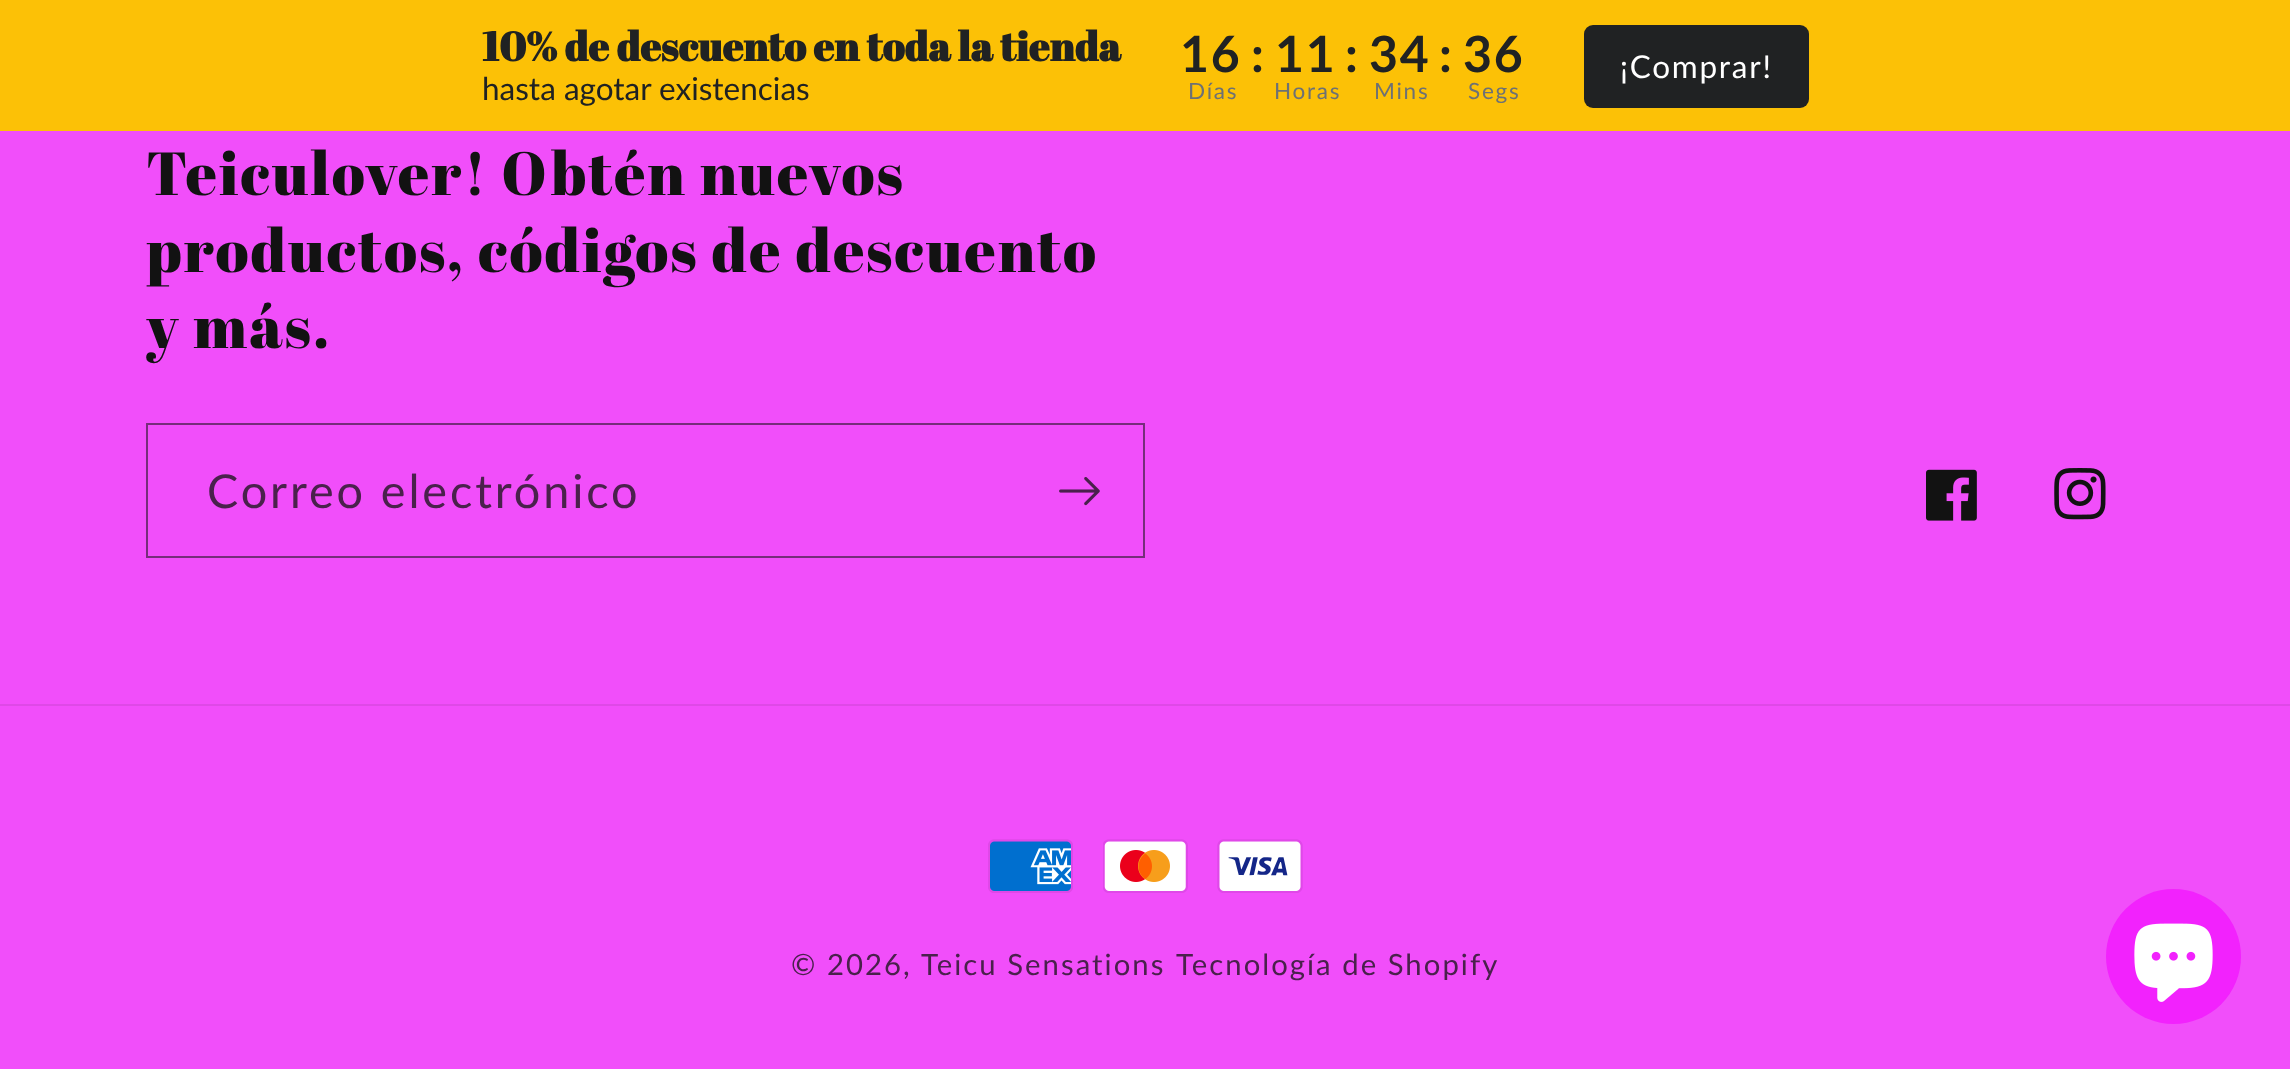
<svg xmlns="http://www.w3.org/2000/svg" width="2290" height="1069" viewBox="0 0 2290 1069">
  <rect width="100%" height="100%" fill="#f14efa"/>
  <path d="M0 0h2290v131H0z" fill="#fcc106"/>
  <rect x="1584" y="25" width="225" height="83" rx="9" fill="#202223"/>
  <path d="M147 424h997v133H147z" fill="none" stroke="#762d7a" stroke-width="2"/>
  <image x="1059" y="477" width="41" height="29" href="img/1.png"/>
  <image x="1926" y="469" width="51" height="52" href="img/2.png"/>
  <image x="2054" y="468" width="52" height="52" href="img/3.png"/>
  <path d="M0 704h2290v2H0z" fill="#df49e7"/>
  <image x="988" y="839" width="85" height="54" href="img/4.png"/>
  <image x="1103" y="839" width="85" height="54" href="img/5.png"/>
  <image x="1217" y="839" width="86" height="54" href="img/6.png"/>
  <circle cx="2173.5" cy="956.5" r="67.5" fill="#f222fd"/>
  <image x="2134" y="923" width="79" height="79" href="img/7.png"/>
  <text x="482" y="61" font-family="Abril Fatface" font-size="40.5" font-weight="bold" fill="#202223">10% de descuento en toda la tienda</text>
  <text x="482" y="100" font-family="Lato" font-size="31.5" fill="#202223">hasta agotar existencias</text>
  <g font-family="Lato" font-size="50" font-weight="bold" letter-spacing="1.75" fill="#202223">
    <text x="1180" y="72">16</text>
    <text x="1251" y="72">:</text>
    <text x="1275" y="72">11</text>
    <text x="1345" y="72">:</text>
    <text x="1369" y="72">34</text>
    <text x="1439" y="72">:</text>
    <text x="1463" y="72">36</text>
  </g>
  <g font-family="Lato" font-size="22.5" letter-spacing="1.75" fill="#6d7175">
    <text x="1188" y="99">Días</text>
    <text x="1274" y="99">Horas</text>
    <text x="1374" y="99">Mins</text>
    <text x="1468" y="99">Segs</text>
  </g>
  <text x="1620" y="78" font-family="Lato" font-size="31.5" letter-spacing="1.75" fill="#fff">¡Comprar!</text>
  <g font-family="Abril Fatface" font-size="60.75" letter-spacing="2" fill="#121212">
    <text x="146" y="195">Teiculover! Obtén nuevos</text>
    <text x="146" y="272">productos, códigos de descuento</text>
    <text x="146" y="348">y más.</text>
  </g>
  <text x="207" y="508" font-family="Lato" font-size="46.75" letter-spacing="2.9" fill="#4a214c">Correo electrónico</text>
  <g font-family="Lato" font-size="29.25" letter-spacing="2.05" fill="#4a214c">
    <text x="791" y="975">© 2026,</text>
    <text x="921" y="975">Teicu Sensations</text>
    <text x="1176" y="975">Tecnología de Shopify</text>
  </g>
</svg>
